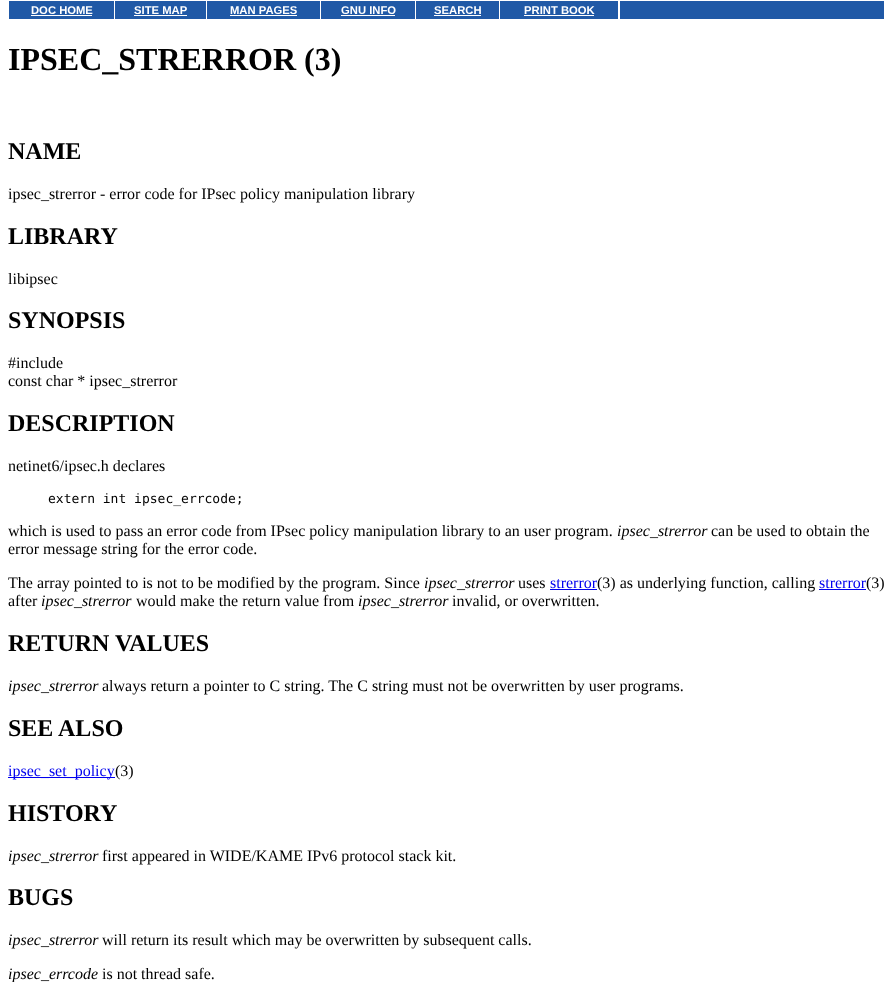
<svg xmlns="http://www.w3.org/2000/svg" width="893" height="982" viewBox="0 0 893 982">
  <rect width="100%" height="100%" fill="#fff"/>
  <path d="M9 1h105v18H9z" fill="#2059a6"/>
  <path d="M31 15h61v1H31z" fill="#fff"/>
  <path d="M115 1h91v18H115z" fill="#2059a6"/>
  <path d="M134 15h53v1H134z" fill="#fff"/>
  <path d="M207 1h113v18H207z" fill="#2059a6"/>
  <path d="M230 15h67v1H230z" fill="#fff"/>
  <path d="M321 1h94v18H321z" fill="#2059a6"/>
  <path d="M341 15h54v1H341z" fill="#fff"/>
  <path d="M416 1h83v18H416z" fill="#2059a6"/>
  <path d="M434 15h47v1H434z" fill="#fff"/>
  <path d="M500 1h118v18H500z" fill="#2059a6"/>
  <path d="M524 15h70v1H524z" fill="#fff"/>
  <path d="M620 1h264v18H620z" fill="#2059a6"/>
  <path d="M550 589h47v1H550z" fill="#00e"/>
  <path d="M819 589h47v1H819z" fill="#00e"/>
  <path d="M8 777h107v1H8z" fill="#00e"/>
  <g font-family="Liberation Sans" font-size="11.25" font-weight="bold" fill="#fff">
    <text x="31" y="14">DOC HOME</text>
    <text x="134" y="14">SITE MAP</text>
    <text x="230" y="14">MAN PAGES</text>
    <text x="341" y="14">GNU INFO</text>
    <text x="434" y="14">SEARCH</text>
    <text x="524" y="14">PRINT BOOK</text>
  </g>
  <text x="8" y="70" font-family="Liberation Serif" font-size="32" font-weight="bold" fill="#000">IPSEC_STRERROR (3)</text>
  <text x="8" y="159" font-family="Liberation Serif" font-size="24" font-weight="bold" fill="#000">NAME</text>
  <text x="8" y="199" font-family="Liberation Serif" font-size="16" fill="#000">ipsec_strerror - error code for IPsec policy manipulation library</text>
  <text x="8" y="244" font-family="Liberation Serif" font-size="24" font-weight="bold" fill="#000">LIBRARY</text>
  <text x="8" y="284" font-family="Liberation Serif" font-size="16" fill="#000">libipsec</text>
  <text x="8" y="328" font-family="Liberation Serif" font-size="24" font-weight="bold" fill="#000">SYNOPSIS</text>
  <g font-family="Liberation Serif" font-size="16" fill="#000">
    <text x="8" y="368">#include</text>
    <text x="8" y="386">const char * ipsec_strerror</text>
  </g>
  <text x="8" y="431" font-family="Liberation Serif" font-size="24" font-weight="bold" fill="#000">DESCRIPTION</text>
  <text x="8" y="471" font-family="Liberation Serif" font-size="16" fill="#000">netinet6/ipsec.h declares</text>
  <text x="48" y="503" font-family="DejaVu Sans Mono" font-size="13" fill="#000">extern int ipsec_errcode;</text>
  <text x="8" y="536" font-family="Liberation Serif" font-size="16" fill="#000">which is used to pass an error code from IPsec policy manipulation library to an user program.</text>
  <text x="617" y="536" font-family="Liberation Serif" font-size="16" font-style="italic" fill="#000">ipsec_strerror</text>
  <g font-family="Liberation Serif" font-size="16" fill="#000">
    <text x="711" y="536">can be used to obtain the</text>
    <text x="8" y="554">error message string for the error code.</text>
    <text x="8" y="588">The array pointed to is not to be modified by the program. Since</text>
  </g>
  <text x="424" y="588" font-family="Liberation Serif" font-size="16" font-style="italic" fill="#000">ipsec_strerror</text>
  <text x="518" y="588" font-family="Liberation Serif" font-size="16" fill="#000">uses</text>
  <text x="550" y="588" font-family="Liberation Serif" font-size="16" fill="#00e">strerror</text>
  <text x="597" y="588" font-family="Liberation Serif" font-size="16" fill="#000">(3) as underlying function, calling</text>
  <text x="819" y="588" font-family="Liberation Serif" font-size="16" fill="#00e">strerror</text>
  <g font-family="Liberation Serif" font-size="16" fill="#000">
    <text x="866" y="588">(3)</text>
    <text x="8" y="606">after</text>
  </g>
  <text x="41" y="606" font-family="Liberation Serif" font-size="16" font-style="italic" fill="#000">ipsec_strerror</text>
  <text x="136" y="606" font-family="Liberation Serif" font-size="16" fill="#000">would make the return value from</text>
  <text x="358" y="606" font-family="Liberation Serif" font-size="16" font-style="italic" fill="#000">ipsec_strerror</text>
  <text x="452" y="606" font-family="Liberation Serif" font-size="16" fill="#000">invalid, or overwritten.</text>
  <text x="8" y="651" font-family="Liberation Serif" font-size="24" font-weight="bold" fill="#000">RETURN VALUES</text>
  <text x="8" y="691" font-family="Liberation Serif" font-size="16" font-style="italic" fill="#000">ipsec_strerror</text>
  <text x="102" y="691" font-family="Liberation Serif" font-size="16" fill="#000">always return a pointer to C string. The C string must not be overwritten by user programs.</text>
  <text x="8" y="736" font-family="Liberation Serif" font-size="24" font-weight="bold" fill="#000">SEE ALSO</text>
  <text x="8" y="776" font-family="Liberation Serif" font-size="16" fill="#00e">ipsec_set_policy</text>
  <text x="115" y="776" font-family="Liberation Serif" font-size="16" fill="#000">(3)</text>
  <text x="8" y="821" font-family="Liberation Serif" font-size="24" font-weight="bold" fill="#000">HISTORY</text>
  <text x="8" y="861" font-family="Liberation Serif" font-size="16" font-style="italic" fill="#000">ipsec_strerror</text>
  <text x="102" y="861" font-family="Liberation Serif" font-size="16" fill="#000">first appeared in WIDE/KAME IPv6 protocol stack kit.</text>
  <text x="8" y="905" font-family="Liberation Serif" font-size="24" font-weight="bold" fill="#000">BUGS</text>
  <text x="8" y="945" font-family="Liberation Serif" font-size="16" font-style="italic" fill="#000">ipsec_strerror</text>
  <text x="102" y="945" font-family="Liberation Serif" font-size="16" fill="#000">will return its result which may be overwritten by subsequent calls.</text>
  <text x="8" y="979" font-family="Liberation Serif" font-size="16" font-style="italic" fill="#000">ipsec_errcode</text>
  <text x="102" y="979" font-family="Liberation Serif" font-size="16" fill="#000">is not thread safe.</text>
</svg>
